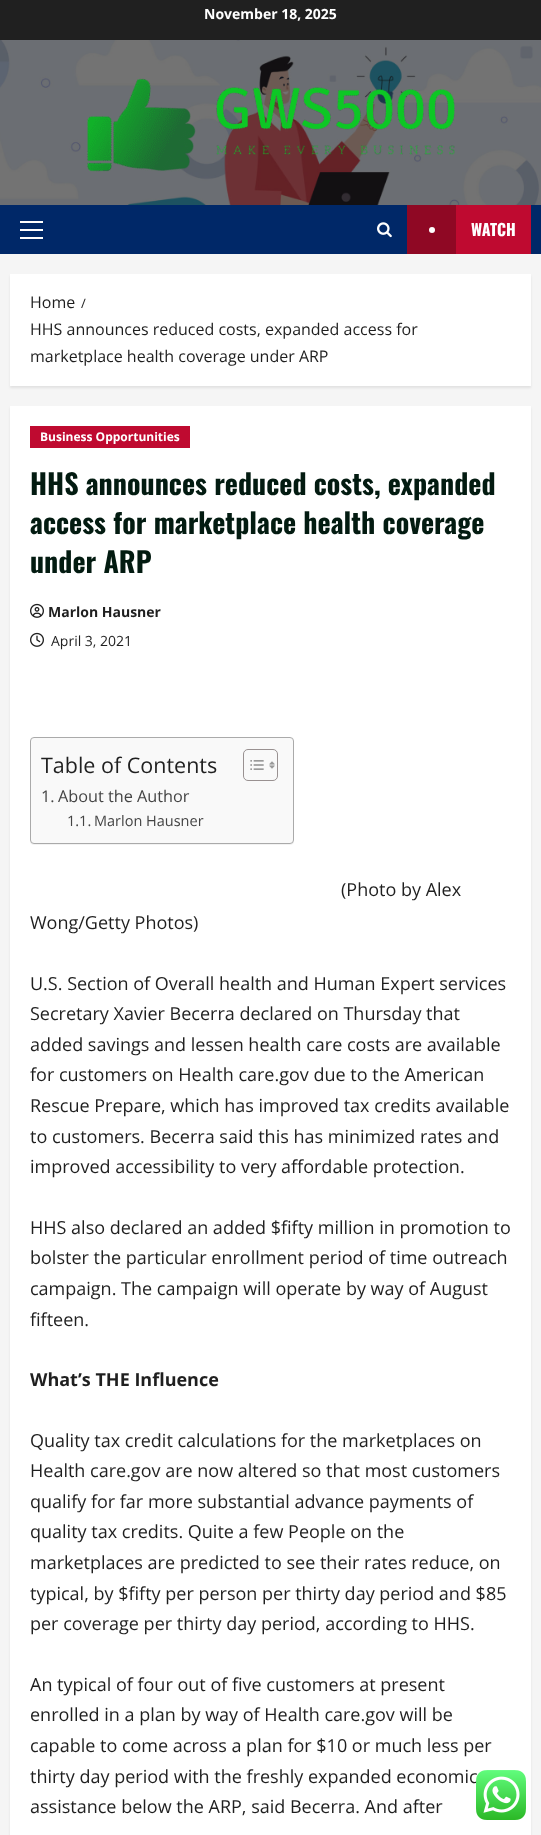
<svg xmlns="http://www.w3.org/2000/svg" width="541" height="1835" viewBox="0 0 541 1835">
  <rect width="100%" height="100%" fill="#f5f5f5"/>
  <path d="M0 0h541v40H0z" fill="#202020"/>
  <image x="0" y="40" width="541" height="165" href="img/1.png"/>
  <image x="87" y="78" width="368" height="94" href="img/2.png"/>
  <path d="M0 205h541v49H0z" fill="#002868"/>
  <path d="M20 229h23v2H20z" fill="#fff"/>
  <path d="M20 221h23v2H20z" fill="#fff"/>
  <path d="M20 237h23v2H20z" fill="#fff"/>
  <image x="377" y="222" width="15" height="16" href="img/3.png"/>
  <path d="M456 205h75v49H456z" fill="#bf0a30"/>
  <path d="M407 205h49v49H407z" fill="#8f0824"/>
  <circle cx="432" cy="230" r="3" fill="#fff"/>
  <path d="M10 276h521v112H10z" fill="#00000014" filter="blur(1px)"/>
  <path d="M10 274h521v112H10z" fill="#fff"/>
  <path d="M10 408h521v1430H10z" fill="#00000014" filter="blur(1px)"/>
  <path d="M10 406h521v1429H10z" fill="#fff"/>
  <path d="M30 426h160v22H30z" fill="#bf0a30"/>
  <image x="30" y="603" width="14" height="15" href="img/4.png"/>
  <image x="30" y="632" width="14" height="15" href="img/5.png"/>
  <rect x="30" y="738" width="264" height="107" rx="4" fill="#0000000d" filter="blur(0.5px)"/>
  <rect x="30.5" y="737.5" width="263" height="106" rx="3.5" fill="#f9f9f9" stroke="#aaa"/>
  <rect x="243.5" y="749.5" width="34" height="31" rx="4.5" fill="none" stroke="#999191"/>
  <image x="250" y="760" width="14" height="10" href="img/6.png"/>
  <image x="269" y="761" width="6" height="8" href="img/7.png"/>
  <text x="204" y="19" font-family="Open Sans" font-size="14" font-weight="bold" fill="#fff">November 18, 2025</text>
  <text x="471" y="236" font-family="Oswald" font-size="16" font-weight="bold" fill="#fff">WATCH</text>
  <text x="30" y="308" font-family="Open Sans" font-size="16" fill="#1f1f1f">Home</text>
  <text x="81" y="308" font-family="Open Sans" font-size="13" fill="#1f1f1f">/</text>
  <g font-family="Open Sans" font-size="16" fill="#1f1f1f">
    <text x="30" y="335">HHS announces reduced costs, expanded access for</text>
    <text x="30" y="362">marketplace health coverage under ARP</text>
  </g>
  <text x="40" y="441" font-family="Open Sans" font-size="12" font-weight="bold" fill="#fff">Business Opportunities</text>
  <g font-family="Oswald" font-size="28" font-weight="bold" fill="#031b11">
    <text x="30" y="495">HHS announces reduced costs, expanded</text>
    <text x="30" y="534">access for marketplace health coverage</text>
    <text x="30" y="573">under ARP</text>
  </g>
  <text x="48" y="617" font-family="Open Sans" font-size="14" font-weight="bold" fill="#1f1f1f">Marlon Hausner</text>
  <text x="51" y="646" font-family="Open Sans" font-size="14" fill="#1f1f1f">April 3, 2021</text>
  <text x="41" y="773" font-family="Open Sans" font-size="21.5" fill="#1f1f1f">Table of Contents</text>
  <g font-family="Open Sans" font-size="16.25" fill="#444">
    <text x="41" y="802">1.</text>
    <text x="58" y="802">About the Author</text>
  </g>
  <g font-family="Open Sans" font-size="14.5" fill="#444">
    <text x="67" y="826">1.1.</text>
    <text x="94" y="826">Marlon Hausner</text>
  </g>
  <g font-family="Open Sans" font-size="18" fill="#1f1f1f">
    <text x="341" y="896">(Photo by Alex</text>
    <text x="30" y="929">Wong/Getty Photos)</text>
    <text x="30" y="990">U.S. Section of Overall health and Human Expert services</text>
    <text x="30" y="1020">Secretary Xavier Becerra declared on Thursday that</text>
    <text x="30" y="1051">added savings and lessen health care costs are available</text>
    <text x="30" y="1081">for customers on Health care.gov due to the American</text>
    <text x="30" y="1112">Rescue Prepare, which has improved tax credits available</text>
    <text x="30" y="1143">to customers. Becerra said this has minimized rates and</text>
    <text x="30" y="1173">improved accessibility to very affordable protection.</text>
    <text x="30" y="1234">HHS also declared an added $fifty million in promotion to</text>
    <text x="30" y="1264">bolster the particular enrollment period of time outreach</text>
    <text x="30" y="1295">campaign. The campaign will operate by way of August</text>
    <text x="30" y="1326">fifteen.</text>
  </g>
  <text x="30" y="1386" font-family="Open Sans" font-size="18" font-weight="bold" fill="#1f1f1f">What’s THE Influence</text>
  <g font-family="Open Sans" font-size="18" fill="#1f1f1f">
    <text x="30" y="1447">Quality tax credit calculations for the marketplaces on</text>
    <text x="30" y="1477">Health care.gov are now altered so that most customers</text>
    <text x="30" y="1508">qualify for far more substantial advance payments of</text>
    <text x="30" y="1538">quality tax credits. Quite a few People on the</text>
    <text x="30" y="1569">marketplaces are predicted to see their rates reduce, on</text>
    <text x="30" y="1600">typical, by $fifty per person per thirty day period and $85</text>
    <text x="30" y="1630">per coverage per thirty day period, according to HHS.</text>
    <text x="30" y="1691">An typical of four out of five customers at present</text>
    <text x="30" y="1721">enrolled in a plan by way of Health care.gov will be</text>
    <text x="30" y="1752">capable to come across a plan for $10 or much less per</text>
    <text x="30" y="1783">thirty day period with the freshly expanded economic</text>
    <text x="30" y="1813">assistance below the ARP, said Becerra. And after</text>
  </g>
  <image x="476" y="1770" width="50" height="50" href="img/8.png"/>
</svg>
